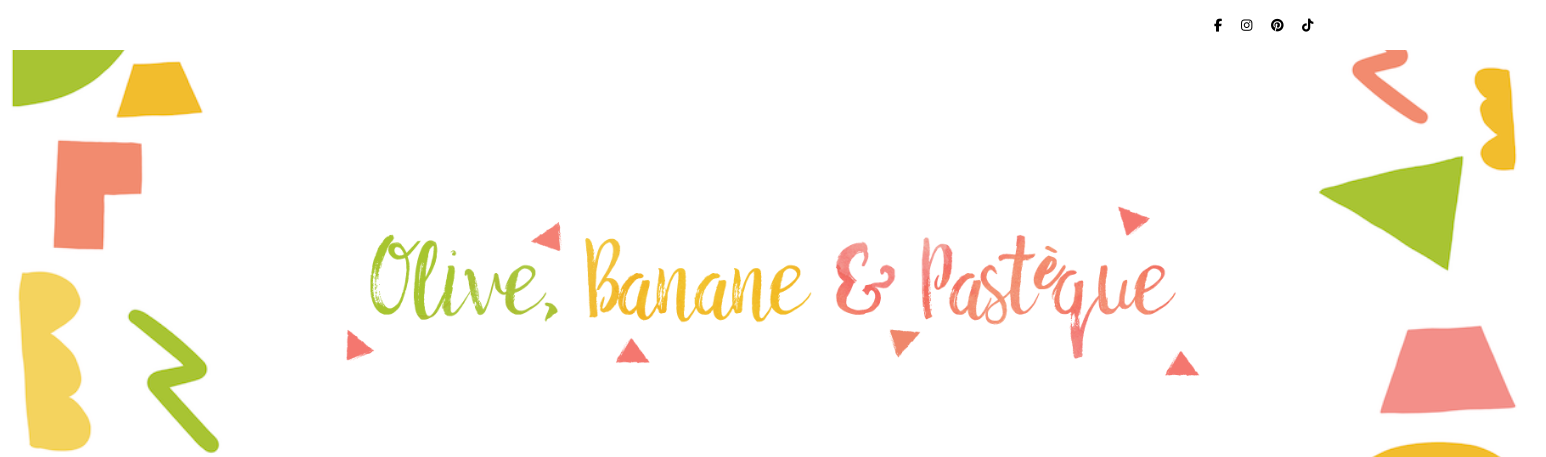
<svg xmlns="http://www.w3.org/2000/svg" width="1546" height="457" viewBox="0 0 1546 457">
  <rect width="100%" height="100%" fill="#fff"/>
  <image x="1214" y="18" width="8" height="14" href="img/1.png"/>
  <image x="1241" y="19" width="12" height="12" href="img/2.png"/>
  <image x="1271" y="18" width="13" height="14" href="img/3.png"/>
  <image x="1302" y="18" width="12" height="14" href="img/4.png"/>
  <image x="11" y="50" width="1506" height="407" href="img/5.png"/>
  <image x="346" y="206" width="854" height="170" href="img/6.png"/>
</svg>
